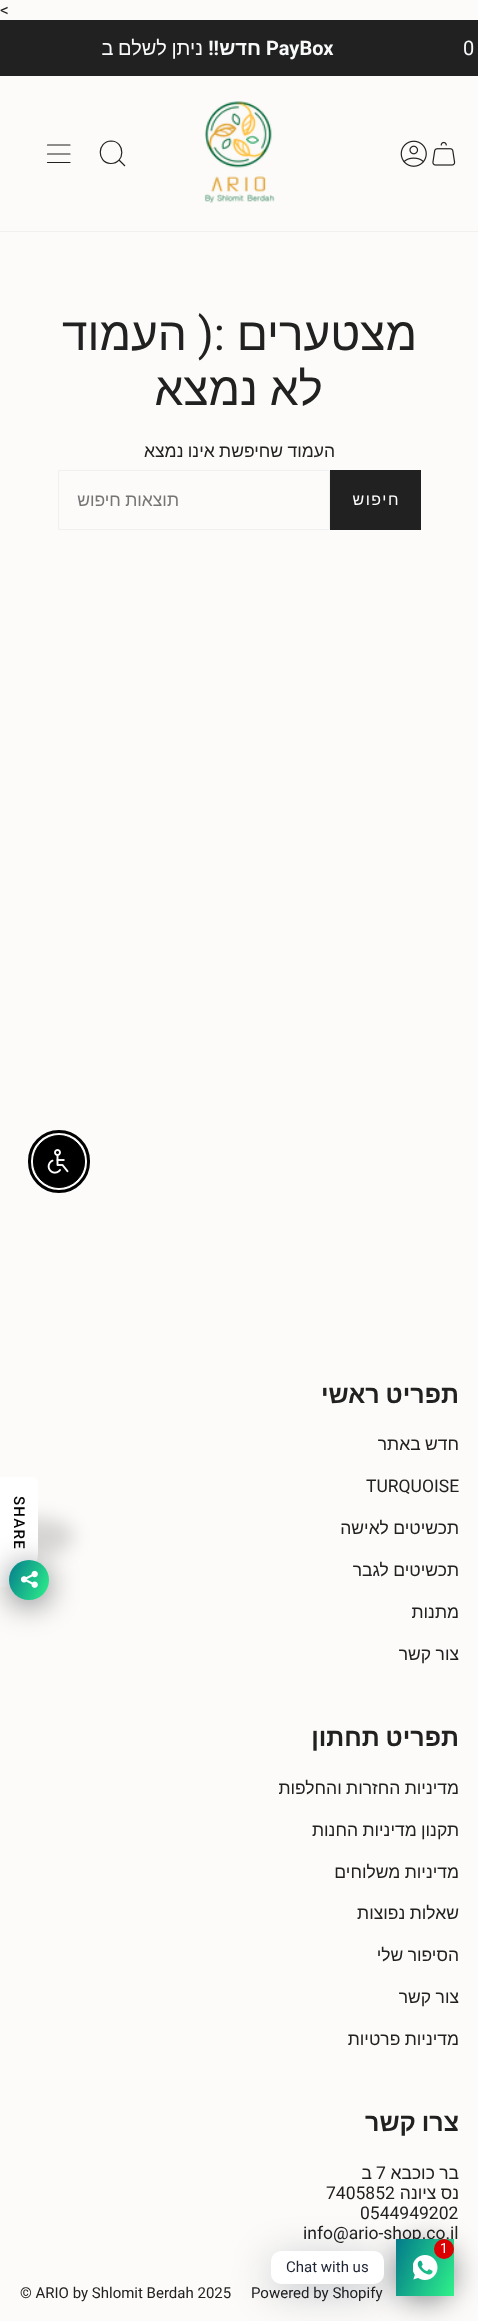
<svg xmlns="http://www.w3.org/2000/svg" width="478" height="2321" viewBox="0 0 478 2321">
  <defs>
    <linearGradient id="g1" gradientUnits="userSpaceOnUse" x1="4.7" y1="1569" x2="53" y2="1591"><stop offset="0" stop-color="#047c8d"/><stop offset="1" stop-color="#2ff289"/></linearGradient>
    <linearGradient id="g2" gradientUnits="userSpaceOnUse" x1="390" y1="2251" x2="460" y2="2284"><stop offset="0" stop-color="#047c8d"/><stop offset="1" stop-color="#2ff289"/></linearGradient>
  </defs>
  <rect width="100%" height="100%" fill="#fcfbf9"/>
  <path d="M0 20h478v56H0z" fill="#212121"/>
  <path d="M0 231h478v1H0z" fill="#f0f0f0"/>
  <image x="432" y="141" width="24" height="25" href="img/1.png"/>
  <image x="400" y="140" width="27" height="27" href="img/2.png"/>
  <image x="204" y="101" width="71" height="102" href="img/3.png"/>
  <path d="M111 141C125.5 141 125.5 164 110.5 163.5C96.5 162.5 97 141.5 111 141ZM119 160L125 166" fill="none" stroke="#212121" stroke-width="1.2"/>
  <path d="M47.5 145H70M47.5 154H70M47.5 162.5H70" fill="none" stroke="#212121" stroke-width="1.2" stroke-linecap="round" stroke-linejoin="round"/>
  <path d="M330 470h91v60H330z" fill="#212121"/>
  <path d="M58.5 470.5h271v59H58.5z" fill="none" stroke="#f0f0f0"/>
  <rect x="29.5" y="1131.5" width="59" height="60" rx="29.5" fill="none" stroke="#000" stroke-width="3"/>
  <rect x="33.5" y="1135.5" width="51" height="52" rx="25.5" fill="#000" stroke="#000"/>
  <image x="47" y="1149" width="22" height="25" href="img/4.png"/>
  <rect x="-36" y="1518" width="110" height="37" rx="35" fill="#00000026" filter="blur(9px)"/>
  <path d="M0 1587V1477H32C35 1477 38 1479 38 1482V1552C38 1572 22 1587 2 1587Z" fill="#fff"/>
  <rect x="9" y="1565" width="40" height="40" rx="20" fill="#02061080" filter="blur(15px)"/>
  <circle cx="29" cy="1580" r="20" fill="url(#g1)"/>
  <image x="20" y="1570" width="18" height="18" href="img/5.png"/>
  <rect x="396" y="2244" width="58" height="57" rx="28.5" fill="#02061080" filter="blur(15px)"/>
  <text x="0" y="16" font-family="Roboto" font-size="17.5" fill="#212121">&lt;</text>
  <text x="463" y="55" font-family="Roboto" font-size="20" fill="#f7f9fa">0</text>
  <text x="266" y="55" font-family="Roboto" font-size="20" font-weight="bold" fill="#f7f9fa">PayBox</text>
  <text x="261" y="55" font-family="Liberation Sans" font-size="20" font-weight="bold" direction="rtl" fill="#f7f9fa">חדש</text>
  <text x="219" y="55" font-family="Roboto" font-size="20" font-weight="bold" direction="rtl" fill="#f7f9fa">!!</text>
  <text x="203" y="55" word-spacing="-1" font-family="Liberation Sans" font-size="20" direction="rtl" fill="#f7f9fa">ניתן לשלם ב</text>
  <text x="417" y="350" font-family="Liberation Sans" font-size="46" direction="rtl" fill="#212121">מצטערים</text>
  <text x="225" y="350" font-family="Roboto" font-size="46" direction="rtl" fill="#212121">:(</text>
  <g font-family="Liberation Sans" font-size="46" direction="rtl" fill="#212121">
    <text x="187" y="350">העמוד</text>
    <text x="323" y="405" word-spacing="-1">לא נמצא</text>
  </g>
  <text x="335" y="457" word-spacing="-0.5" font-family="Liberation Sans" font-size="17.5" direction="rtl" fill="#212121">העמוד שחיפשת אינו נמצא</text>
  <text x="400" y="505" font-family="Liberation Sans" font-size="16" letter-spacing="1.5" direction="rtl" fill="#fff">חיפוש</text>
  <text x="179" y="506" word-spacing="-0.5" font-family="Liberation Sans" font-size="17.5" direction="rtl" fill="#757575">תוצאות חיפוש</text>
  <text x="459" y="1403" word-spacing="-1" font-family="Liberation Sans" font-size="25" font-weight="bold" direction="rtl" fill="#212121">תפריט ראשי</text>
  <text x="459" y="1450" word-spacing="-0.5" font-family="Liberation Sans" font-size="17.5" direction="rtl" fill="#212121">חדש באתר</text>
  <text x="366" y="1492" font-family="Roboto" font-size="17.5" fill="#212121">TURQUOISE</text>
  <g font-family="Liberation Sans" font-size="17.5" direction="rtl" fill="#212121">
    <text x="459" y="1534" word-spacing="-0.5">תכשיטים לאישה</text>
    <text x="459" y="1576" word-spacing="-0.5">תכשיטים לגבר</text>
    <text x="459" y="1618">מתנות</text>
    <text x="459" y="1660" word-spacing="-0.5">צור קשר</text>
  </g>
  <text x="459" y="1746" word-spacing="-1" font-family="Liberation Sans" font-size="25" font-weight="bold" direction="rtl" fill="#212121">תפריט תחתון</text>
  <g font-family="Liberation Sans" font-size="17.5" direction="rtl" fill="#212121">
    <text x="459" y="1794" word-spacing="-0.5">מדיניות החזרות והחלפות</text>
    <text x="459" y="1836" word-spacing="-0.5">תקנון מדיניות החנות</text>
    <text x="459" y="1878" word-spacing="-0.5">מדיניות משלוחים</text>
    <text x="459" y="1919" word-spacing="-0.5">שאלות נפוצות</text>
    <text x="459" y="1961" word-spacing="-0.5">הסיפור שלי</text>
    <text x="459" y="2003" word-spacing="-0.5">צור קשר</text>
    <text x="459" y="2045" word-spacing="-0.5">מדיניות פרטיות</text>
  </g>
  <text x="459" y="2131" word-spacing="-1" font-family="Liberation Sans" font-size="25" font-weight="bold" direction="rtl" fill="#212121">צרו קשר</text>
  <text x="459" y="2179" word-spacing="-0.5" font-family="Liberation Sans" font-size="17.5" direction="rtl" fill="#212121">בר כוכבא</text>
  <text x="376" y="2179" font-family="Roboto" font-size="17.5" fill="#212121">7</text>
  <g font-family="Liberation Sans" font-size="17.5" direction="rtl" fill="#212121">
    <text x="372" y="2179">ב</text>
    <text x="459" y="2199" word-spacing="-0.5">נס ציונה</text>
  </g>
  <g font-family="Roboto" font-size="17.5" fill="#212121">
    <text x="326" y="2199">7405852</text>
    <text x="360" y="2219">0544949202</text>
    <text x="303" y="2239">info@ario-shop.co.il</text>
  </g>
  <g font-family="Roboto" font-size="15" fill="#212121">
    <text x="251" y="2298">Powered by Shopify</text>
    <text x="20" y="2298">© ARIO by Shlomit Berdah 2025</text>
  </g>
  <text x="14" y="1496" transform="rotate(90 14 1496)" font-family="Roboto" font-size="15" font-weight="500" letter-spacing="1.25" fill="#000">SHARE</text>
  <path d="M396 2239h58v57H396z" fill="url(#g2)"/>
  <rect x="271" y="2259" width="113" height="32" rx="10" fill="#00122e3d" filter="blur(20px)"/>
  <image x="413" y="2255" width="25" height="25" href="img/6.png"/>
  <circle cx="444" cy="2249" r="10" fill="#d00"/>
  <text x="440" y="2253" font-family="Roboto" font-size="14" fill="#fff">1</text>
  <rect x="271" y="2251" width="113" height="33" rx="10" fill="#fff"/>
  <text x="286" y="2272" font-family="Roboto" font-size="15" fill="#1e2433">Chat with us</text>
</svg>
